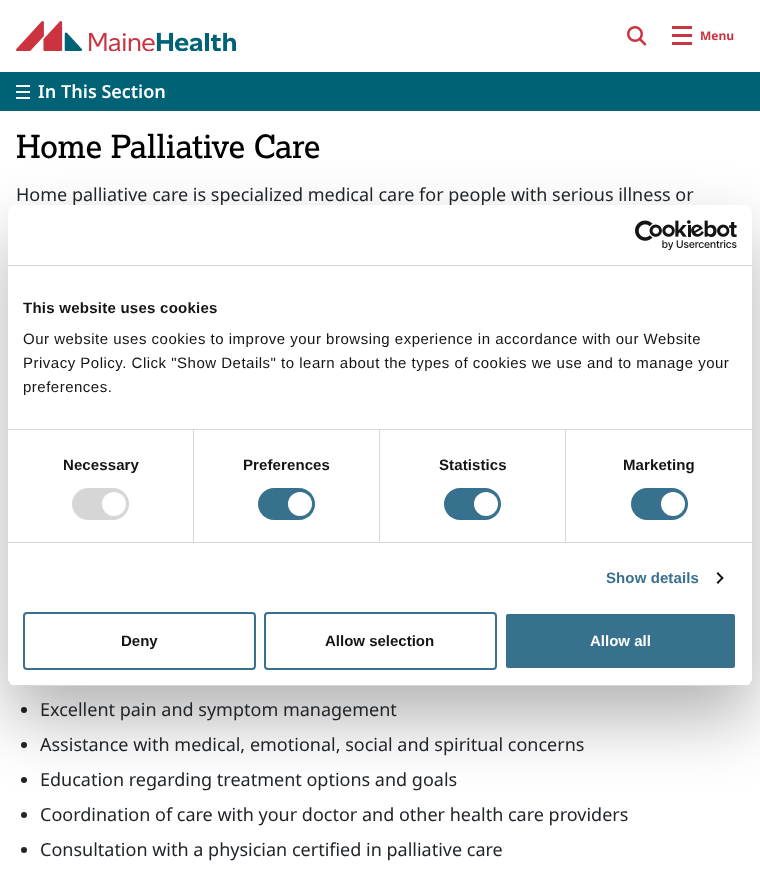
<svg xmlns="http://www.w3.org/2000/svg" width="760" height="891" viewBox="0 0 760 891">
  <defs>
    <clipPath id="clip1"><rect x="8" y="205" width="744" height="481" rx="8"/></clipPath>
  </defs>
  <rect width="100%" height="100%" fill="#fff"/>
  <image x="16" y="21" width="220" height="30" href="img/1.png"/>
  <image x="627" y="26" width="20" height="20" href="img/2.png"/>
  <path d="M672 26h20v3H672z" fill="#cb3340"/>
  <path d="M672 34h20v3H672z" fill="#cb3340"/>
  <path d="M672 42h20v3H672z" fill="#cb3340"/>
  <path d="M0 72h760v39H0z" fill="#006375"/>
  <path d="M16 85h14v2H16z" fill="#fff"/>
  <path d="M16 91h14v2H16z" fill="#fff"/>
  <path d="M16 97h14v2H16z" fill="#fff"/>
  <circle cx="24" cy="710" r="3" fill="#212529"/>
  <circle cx="24" cy="745" r="3" fill="#212529"/>
  <circle cx="24" cy="780" r="3" fill="#212529"/>
  <circle cx="24" cy="815" r="3" fill="#212529"/>
  <circle cx="24" cy="850" r="3" fill="#212529"/>
  <rect x="8" y="237" width="744" height="481" rx="8" fill="#0000004d" filter="blur(34px)"/>
  <text x="700" y="40" font-family="Noto Sans" font-size="12" font-weight="bold" fill="#cb3340">Menu</text>
  <text x="38" y="98" font-family="Noto Sans" font-size="18" font-weight="600" fill="#fff">In This Section</text>
  <text x="16" y="158" font-family="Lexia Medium" font-size="32" font-weight="500" fill="#000">Home Palliative Care</text>
  <g font-family="Noto Sans" font-size="18" fill="#212529">
    <text x="16" y="201">Home palliative care is specialized medical care for people with serious illness or</text>
    <text x="40" y="716">Excellent pain and symptom management</text>
    <text x="40" y="751">Assistance with medical, emotional, social and spiritual concerns</text>
    <text x="40" y="786">Education regarding treatment options and goals</text>
    <text x="40" y="821">Coordination of care with your doctor and other health care providers</text>
    <text x="40" y="856">Consultation with a physician certified in palliative care</text>
  </g>
  <rect x="8" y="205" width="744" height="481" rx="8" fill="#fff"/>
  <path d="M8 265h744v1H8z" fill="#d6d6d6"/>
  <image x="635" y="220" width="102" height="30" href="img/3.png"/>
  <path d="M8 429h744v1H8z" fill="#d6d6d6"/>
  <text x="23" y="313" font-family="Liberation Sans" font-size="15" font-weight="bold" letter-spacing="0.25" fill="#141414">This website uses cookies</text>
  <g font-family="Liberation Sans" font-size="15" letter-spacing="0.5" fill="#141414">
    <text x="23" y="344">Our website uses cookies to improve your browsing experience in accordance with our Website</text>
    <text x="23" y="368">Privacy Policy. Click "Show Details" to learn about the types of cookies we use and to manage your</text>
    <text x="23" y="392">preferences.</text>
  </g>
  <path d="M8 542h744v1H8z" fill="#d6d6d6"/>
  <path d="M193 430h1v112H193z" fill="#d6d6d6"/>
  <text x="63" y="470" font-family="Liberation Sans" font-size="15" font-weight="bold" letter-spacing="0.1" fill="#141414">Necessary</text>
  <rect x="72" y="488" width="57" height="32" rx="16" fill="#d6d6d6"/>
  <circle cx="114" cy="504" r="12" fill="#fff"/>
  <path d="M379 430h1v112H379z" fill="#d6d6d6"/>
  <text x="243" y="470" font-family="Liberation Sans" font-size="15" font-weight="bold" letter-spacing="0.1" fill="#141414">Preferences</text>
  <rect x="258" y="488" width="57" height="32" rx="16" fill="#37718e"/>
  <circle cx="300" cy="504" r="12" fill="#fff"/>
  <path d="M565 430h1v112H565z" fill="#d6d6d6"/>
  <text x="439" y="470" font-family="Liberation Sans" font-size="15" font-weight="bold" letter-spacing="0.1" fill="#141414">Statistics</text>
  <rect x="444" y="488" width="57" height="32" rx="16" fill="#37718e"/>
  <circle cx="486" cy="504" r="12" fill="#fff"/>
  <text x="623" y="470" font-family="Liberation Sans" font-size="15" font-weight="bold" letter-spacing="0.1" fill="#141414">Marketing</text>
  <rect x="631" y="488" width="57" height="32" rx="16" fill="#37718e"/>
  <circle cx="673" cy="504" r="12" fill="#fff"/>
  <text x="606" y="583" font-family="Liberation Sans" font-size="15" font-weight="bold" letter-spacing="0.1" fill="#37718e">Show details</text>
  <path d="M718 572L723.5 578L722.5 579.5L716.5 573.5Z" fill="#141414"/>
  <path d="M722.5 576.5L723.5 578L718 584L716.5 582.5Z" fill="#141414"/>
  <g clip-path="url(#clip1)">
    <path d="M8 685h744v1H8z" fill="#d6d6d6"/>
  </g>
  <rect x="24" y="613" width="231" height="56" rx="3" fill="none" stroke="#37718e" stroke-width="2"/>
  <text x="121" y="646" font-family="Liberation Sans" font-size="15" font-weight="bold" fill="#141414">Deny</text>
  <rect x="265" y="613" width="231" height="56" rx="3" fill="none" stroke="#37718e" stroke-width="2"/>
  <text x="325" y="646" font-family="Liberation Sans" font-size="15" font-weight="bold" fill="#141414">Allow selection</text>
  <rect x="505" y="613" width="231" height="56" rx="3" fill="#37718e" stroke="#fff" stroke-width="2"/>
  <text x="590" y="646" font-family="Liberation Sans" font-size="15" font-weight="bold" fill="#fff">Allow all</text>
</svg>
